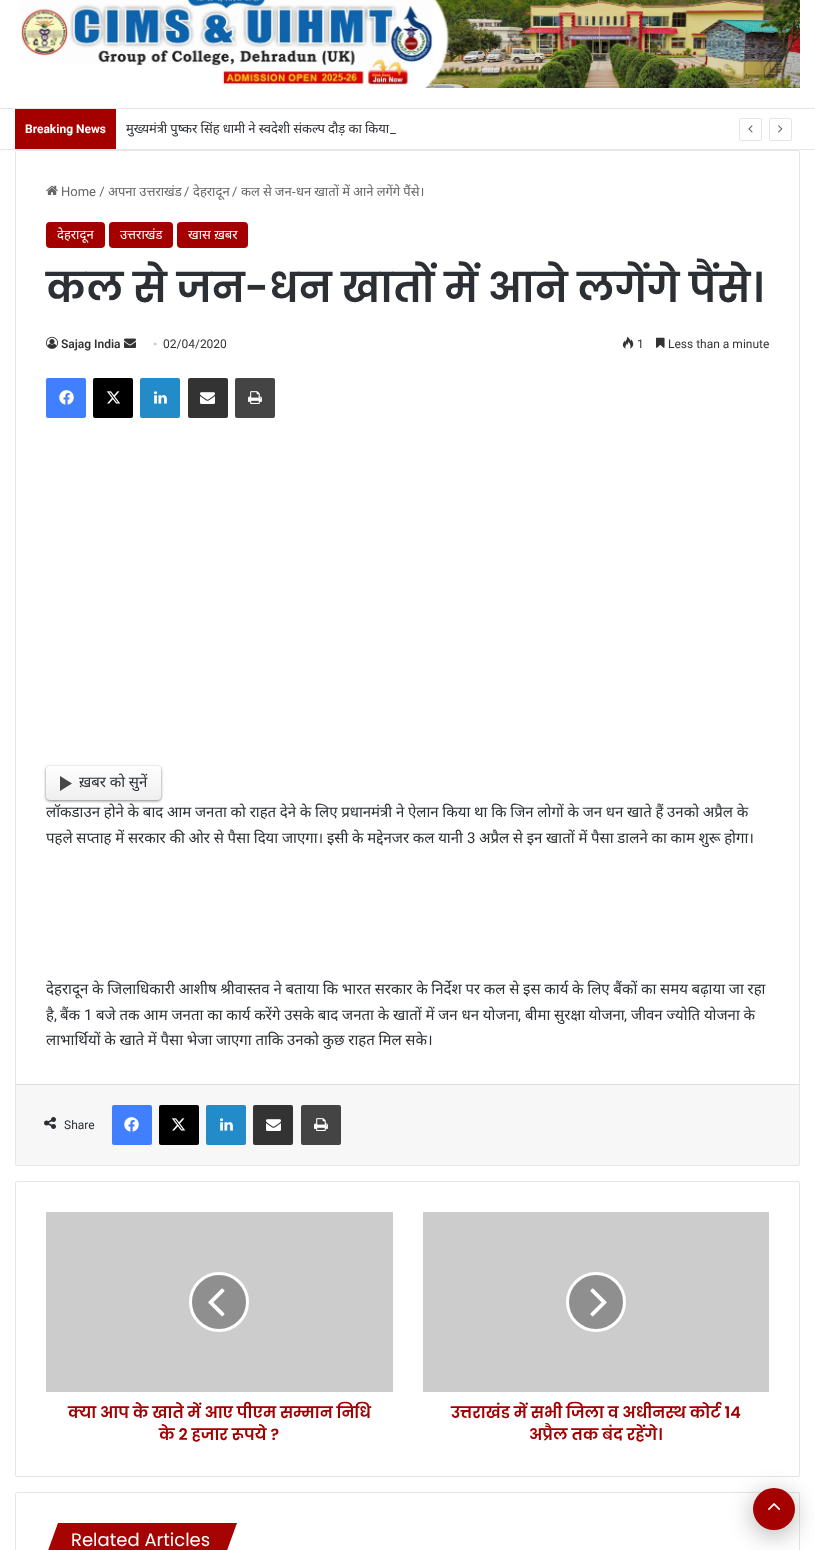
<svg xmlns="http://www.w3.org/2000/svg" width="815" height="1550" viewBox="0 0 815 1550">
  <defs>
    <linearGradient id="g1" gradientUnits="userSpaceOnUse" x1="104" y1="766" x2="104" y2="800"><stop offset="0" stop-color="#fff"/><stop offset="1" stop-color="#efefef"/></linearGradient>
    <clipPath id="clip1"><path d="M126 109h313v40H126z"/></clipPath>
  </defs>
  <rect width="100%" height="100%" fill="#fff"/>
  <image x="20" y="0" width="780" height="88" href="img/1.png"/>
  <path d="M0 108h815v1H0z" fill="#e6e6e6"/>
  <path d="M0 149h815v1H0z" fill="#e6e6e6"/>
  <path d="M15 109h101v40H15z" fill="#a50000"/>
  <rect x="739.5" y="118.5" width="22" height="22" rx="1.5" fill="none" stroke="#e6e6e6"/>
  <image x="748" y="125" width="5" height="8" href="img/2.png"/>
  <rect x="769.5" y="118.5" width="22" height="22" rx="1.5" fill="none" stroke="#e6e6e6"/>
  <image x="778" y="125" width="5" height="8" href="img/3.png"/>
  <rect x="15.5" y="150.5" width="784" height="1015" rx="1.5" fill="none" stroke="#e6e6e6"/>
  <image x="46" y="185" width="12" height="11" href="img/4.png"/>
  <rect x="46" y="222" width="59" height="26" rx="4" fill="#a50000"/>
  <rect x="109" y="222" width="64" height="26" rx="4" fill="#a50000"/>
  <rect x="177" y="222" width="71" height="26" rx="4" fill="#a50000"/>
  <image x="46" y="336" width="12" height="13" href="img/5.png"/>
  <image x="124" y="338" width="12" height="10" href="img/6.png"/>
  <image x="622" y="336" width="12" height="13" href="img/7.png"/>
  <image x="656" y="337" width="9" height="11" href="img/8.png"/>
  <rect x="46" y="378" width="40" height="40" rx="2" fill="#4080ff"/>
  <image x="59" y="390" width="15" height="15" href="img/9.png"/>
  <rect x="93" y="378" width="40" height="40" rx="2" fill="#000"/>
  <image x="106" y="391" width="15" height="13" href="img/10.png"/>
  <rect x="140" y="378" width="40" height="40" rx="2" fill="#238cc8"/>
  <image x="154" y="391" width="13" height="13" href="img/11.png"/>
  <rect x="188" y="378" width="40" height="40" rx="2" fill="#333"/>
  <image x="200" y="392" width="15" height="12" href="img/12.png"/>
  <rect x="235" y="378" width="40" height="40" rx="2" fill="#444"/>
  <image x="248" y="391" width="14" height="13" href="img/13.png"/>
  <rect x="46" y="767" width="115" height="34" rx="4" fill="#808080" filter="blur(1.5px)"/>
  <rect x="46" y="766" width="115" height="34" rx="4" fill="url(#g1)"/>
  <path d="M72 783.5L60 791V776Z" fill="#484848"/>
  <path d="M16 1085h783v80H16z" fill="#f7f7f7"/>
  <path d="M16 1084h783v1H16z" fill="#dedede"/>
  <image x="44" y="1117" width="12" height="12" href="img/14.png"/>
  <rect x="112" y="1105" width="40" height="40" rx="2" fill="#4080ff"/>
  <image x="124" y="1117" width="15" height="15" href="img/9.png"/>
  <rect x="159" y="1105" width="40" height="40" rx="2" fill="#000"/>
  <image x="171" y="1118" width="15" height="13" href="img/10.png"/>
  <rect x="206" y="1105" width="40" height="40" rx="2" fill="#238cc8"/>
  <image x="220" y="1118" width="13" height="13" href="img/11.png"/>
  <rect x="253" y="1105" width="40" height="40" rx="2" fill="#333"/>
  <image x="266" y="1119" width="15" height="12" href="img/12.png"/>
  <rect x="301" y="1105" width="40" height="40" rx="2" fill="#444"/>
  <image x="314" y="1118" width="14" height="13" href="img/13.png"/>
  <rect x="15.5" y="1181.5" width="784" height="295" rx="1.5" fill="none" stroke="#e6e6e6"/>
  <path d="M46 1212h347v180H46z" fill="#ccc"/>
  <circle cx="219" cy="1302" r="28.5" fill="#8f8f8f" stroke="#fff" stroke-width="3"/>
  <image x="208" y="1288" width="17" height="29" href="img/15.png"/>
  <path d="M423 1212h346v180H423z" fill="#ccc"/>
  <circle cx="596" cy="1302" r="28.5" fill="#8f8f8f" stroke="#fff" stroke-width="3"/>
  <image x="590" y="1288" width="17" height="29" href="img/16.png"/>
  <rect x="15.5" y="1492.5" width="784" height="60" rx="1.5" fill="none" stroke="#e6e6e6"/>
  <path d="M58 1523H237L225 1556H46Z" fill="#a60303"/>
  <rect x="753" y="1493" width="42" height="42" rx="21" fill="#0000004d" filter="blur(12.5px)"/>
  <circle cx="774" cy="1509" r="21" fill="#a50000"/>
  <image x="768" y="1503" width="13" height="8" href="img/17.png"/>
  <text x="25" y="133" font-family="Roboto" font-size="12" font-weight="bold" fill="#fff">Breaking News</text>
  <g clip-path="url(#clip1)">
    <text x="126" y="133" word-spacing="-0.25" font-family="Noto Sans" font-size="13" fill="#2c2f34">मुख्यमंत्री पुष्कर सिंह धामी ने स्वदेशी संकल्प दौड़ का किया</text>
  </g>
  <text x="390" y="133" font-family="Roboto" font-size="13" fill="#2c2f34">_</text>
  <text x="61" y="196" font-family="Roboto" font-size="13" fill="#666">Home /</text>
  <g font-family="Noto Sans" font-size="13" fill="#666">
    <text x="108" y="196">अपना उत्तराखंड</text>
    <text x="241" y="196" word-spacing="-0.25">कल से जन-धन खातों में आने लगेंगे पैंसे।</text>
  </g>
  <text x="184" y="196" font-family="Roboto" font-size="13" fill="#666">/</text>
  <text x="193" y="196" font-family="Noto Sans" font-size="13" fill="#666">देहरादून</text>
  <text x="232" y="196" font-family="Roboto" font-size="13" fill="#666">/</text>
  <g font-family="Noto Sans" font-size="13" fill="#fff">
    <text x="57" y="239">देहरादून</text>
    <text x="120" y="239">उत्तराखंड</text>
    <text x="188" y="239">खास ख़बर</text>
  </g>
  <text x="46" y="302" font-family="Poppins" font-size="41" font-weight="600" fill="#2c2f34">कल से जन-धन खातों में आने लगेंगे पैंसे।</text>
  <text x="61" y="348" font-family="Roboto" font-size="12" font-weight="600" fill="#333">Sajag India</text>
  <text x="153" y="348" font-family="Liberation Serif" font-size="12" fill="#ccc">•</text>
  <g font-family="Roboto" font-size="12" fill="#333">
    <text x="163" y="348">02/04/2020</text>
    <text x="637" y="348">1</text>
    <text x="668" y="348">Less than a minute</text>
  </g>
  <g font-family="Noto Sans" font-size="15" fill="#2c2f34">
    <text x="79" y="787" word-spacing="-0.2">ख़बर को सुनें</text>
    <text x="46" y="817" word-spacing="-0.2">लॉकडाउन होने के बाद आम जनता को राहत देने के लिए प्रधानमंत्री ने ऐलान किया था कि जिन लोगों के जन धन खाते हैं उनको अप्रैल के</text>
    <text x="46" y="843" word-spacing="-0.2">पहले सप्ताह में सरकार की ओर से पैसा दिया जाएगा। इसी के मद्देनजर कल यानी</text>
  </g>
  <text x="467" y="843" font-family="Roboto" font-size="15" fill="#2c2f34">3</text>
  <g font-family="Noto Sans" font-size="15" fill="#2c2f34">
    <text x="479" y="843" word-spacing="-0.2">अप्रैल से इन खातों में पैसा डालने का काम शुरू होगा।</text>
    <text x="46" y="994" word-spacing="-0.2">देहरादून के जिलाधिकारी आशीष श्रीवास्तव ने बताया कि भारत सरकार के निर्देश पर कल से इस कार्य के लिए बैंकों का समय बढ़ाया जा रहा</text>
    <text x="46" y="1020">है</text>
    <text x="60" y="1020">बैंक</text>
  </g>
  <text x="84" y="1020" font-family="Roboto" font-size="15" fill="#2c2f34">1</text>
  <g font-family="Noto Sans" font-size="15" fill="#2c2f34">
    <text x="96" y="1020" word-spacing="-0.1">बजे तक आम जनता का कार्य करेंगे उसके बाद जनता के खातों में जन धन योजना</text>
    <text x="525" y="1020" word-spacing="-0.1">बीमा सुरक्षा योजना</text>
    <text x="631" y="1020" word-spacing="-0.1">जीवन ज्योति योजना के</text>
  </g>
  <g font-family="Roboto" font-size="15" fill="#2c2f34">
    <text x="54" y="1020">,</text>
    <text x="518" y="1020">,</text>
    <text x="624" y="1020">,</text>
  </g>
  <text x="46" y="1045" word-spacing="-0.2" font-family="Noto Sans" font-size="15" fill="#2c2f34">लाभार्थियों के खाते में पैसा भेजा जाएगा ताकि उनको कुछ राहत मिल सके।</text>
  <text x="64" y="1129" font-family="Roboto" font-size="12" fill="#2c2f34">Share</text>
  <g font-family="Poppins" font-size="16" font-weight="600" fill="#a50000">
    <text x="68" y="1418">क्या आप के खाते में आए पीएम सम्मान निधि</text>
    <text x="159" y="1440">के 2 हजार रूपये ?</text>
    <text x="451" y="1418">उत्तराखंड में सभी जिला व अधीनस्थ कोर्ट 14</text>
    <text x="529" y="1440">अप्रैल तक बंद रहेंगे।</text>
  </g>
  <text x="71" y="1546" font-family="Poppins" font-size="18" fill="#fff">Related Articles</text>
</svg>
